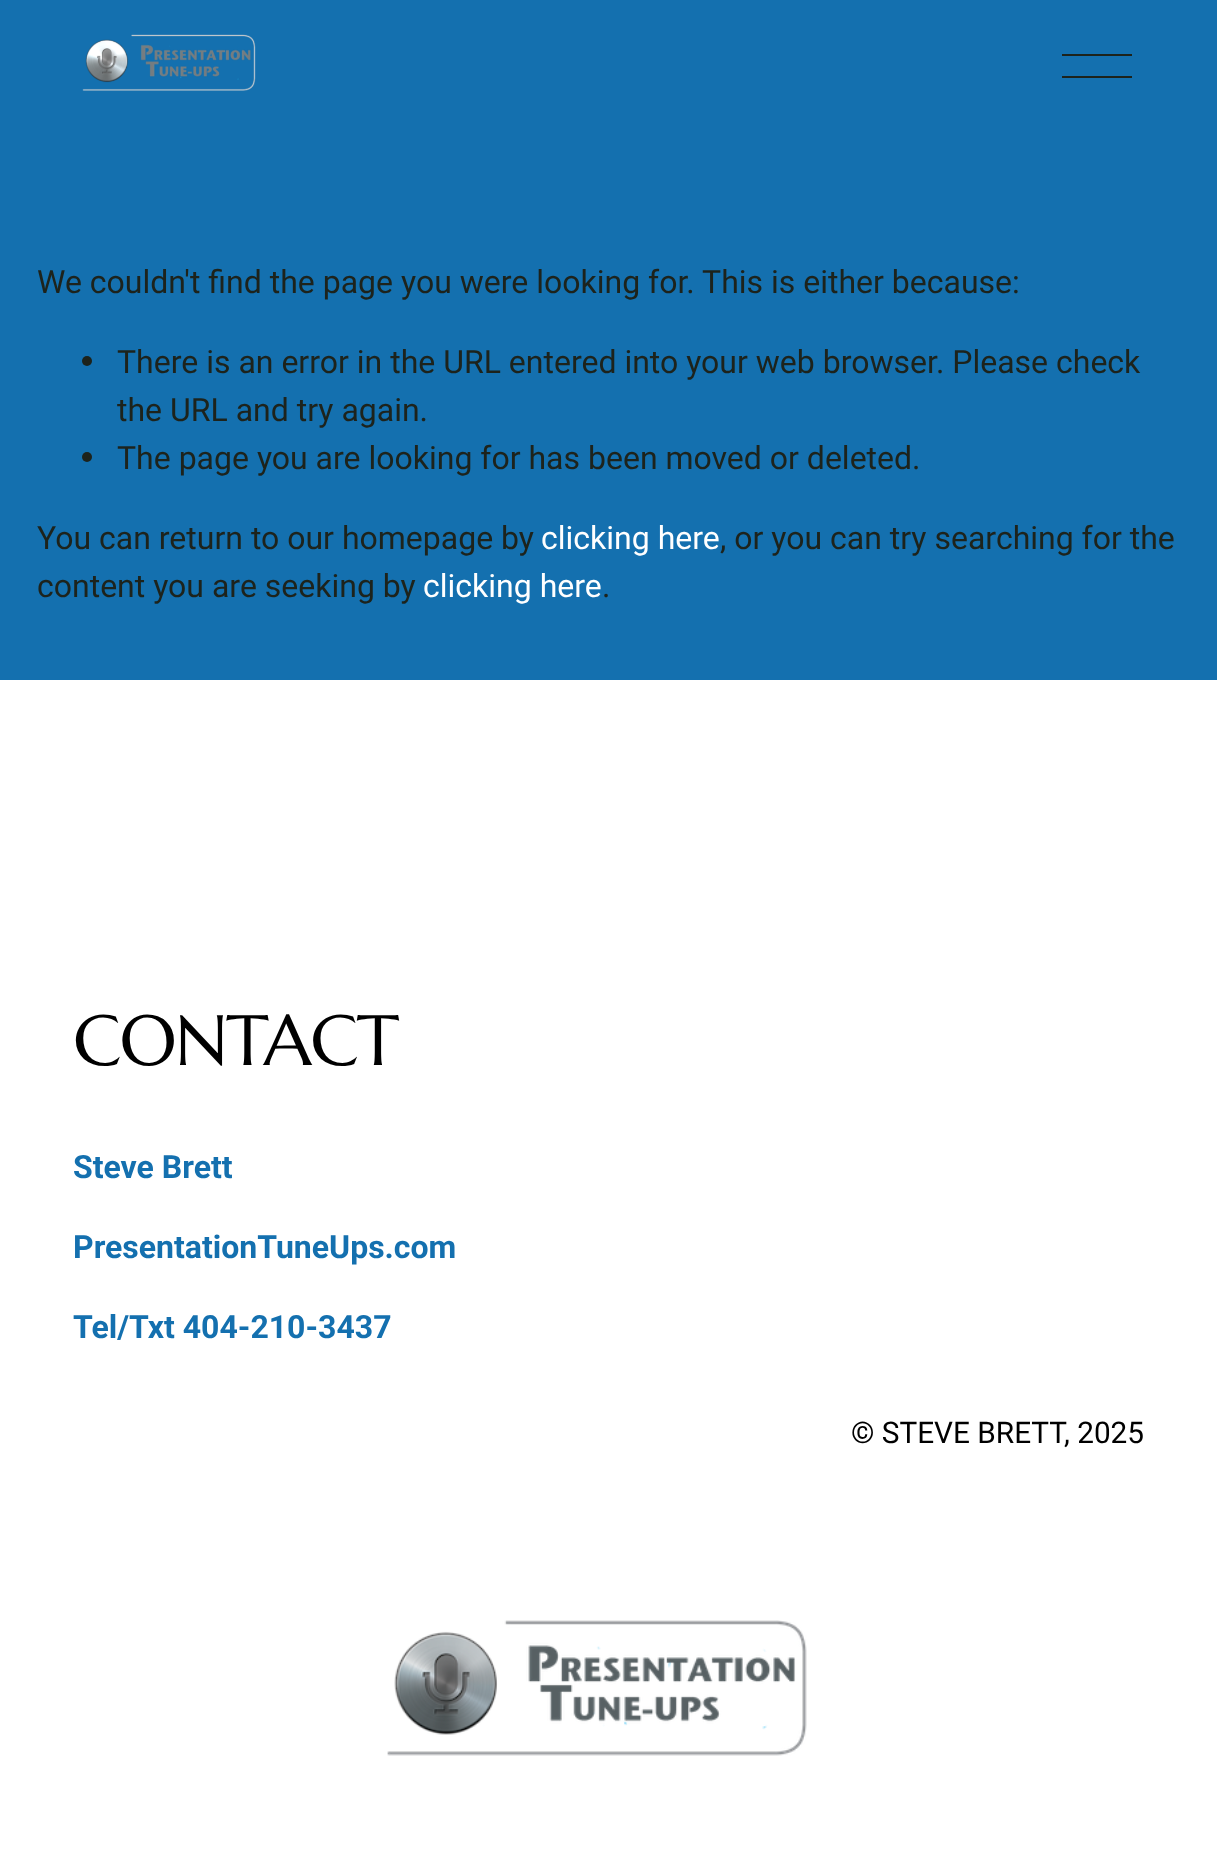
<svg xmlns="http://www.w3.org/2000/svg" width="1217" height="1876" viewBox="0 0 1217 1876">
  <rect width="100%" height="100%" fill="#1470af"/>
  <image x="82" y="34" width="174" height="57" href="img/1.png"/>
  <path d="M1062 54h70v2H1062z" fill="#1d231c"/>
  <path d="M1062 76h70v2H1062z" fill="#1d231c"/>
  <circle cx="87" cy="361" r="5" fill="#1d231c"/>
  <circle cx="87" cy="457" r="5" fill="#1d231c"/>
  <path d="M0 680h1217v1196H0z" fill="#fff"/>
  <image x="387" y="1620" width="420" height="136" href="img/2.png"/>
  <g font-family="Roboto" font-size="32" fill="#1d231c">
    <text x="37" y="293">We couldn't find the page you were looking for. This is either because:</text>
    <text x="117" y="373">There is an error in the URL entered into your web browser. Please check</text>
    <text x="117" y="421">the URL and try again.</text>
    <text x="117" y="469">The page you are looking for has been moved or deleted.</text>
    <text x="37" y="549">You can return to our homepage by</text>
  </g>
  <text x="541" y="549" font-family="Roboto" font-size="32" fill="#fff">clicking here</text>
  <g font-family="Roboto" font-size="32" fill="#1d231c">
    <text x="720" y="549">, or you can try searching for the</text>
    <text x="37" y="597">content you are seeking by</text>
  </g>
  <text x="423" y="597" font-family="Roboto" font-size="32" fill="#fff">clicking here</text>
  <text x="602" y="597" font-family="Roboto" font-size="32" fill="#1d231c">.</text>
  <text x="73" y="1065" font-family="Marcellus" font-size="71" letter-spacing="-1.5" fill="#000">CONTACT</text>
  <g font-family="Roboto" font-size="32" font-weight="bold" fill="#1470af">
    <text x="73" y="1178">Steve Brett</text>
    <text x="73" y="1258">PresentationTuneUps.com</text>
    <text x="73" y="1338">Tel/Txt 404-210-3437</text>
  </g>
  <text x="851" y="1443" font-family="Roboto" font-size="29.75" fill="#000">© STEVE BRETT, 2025</text>
</svg>
